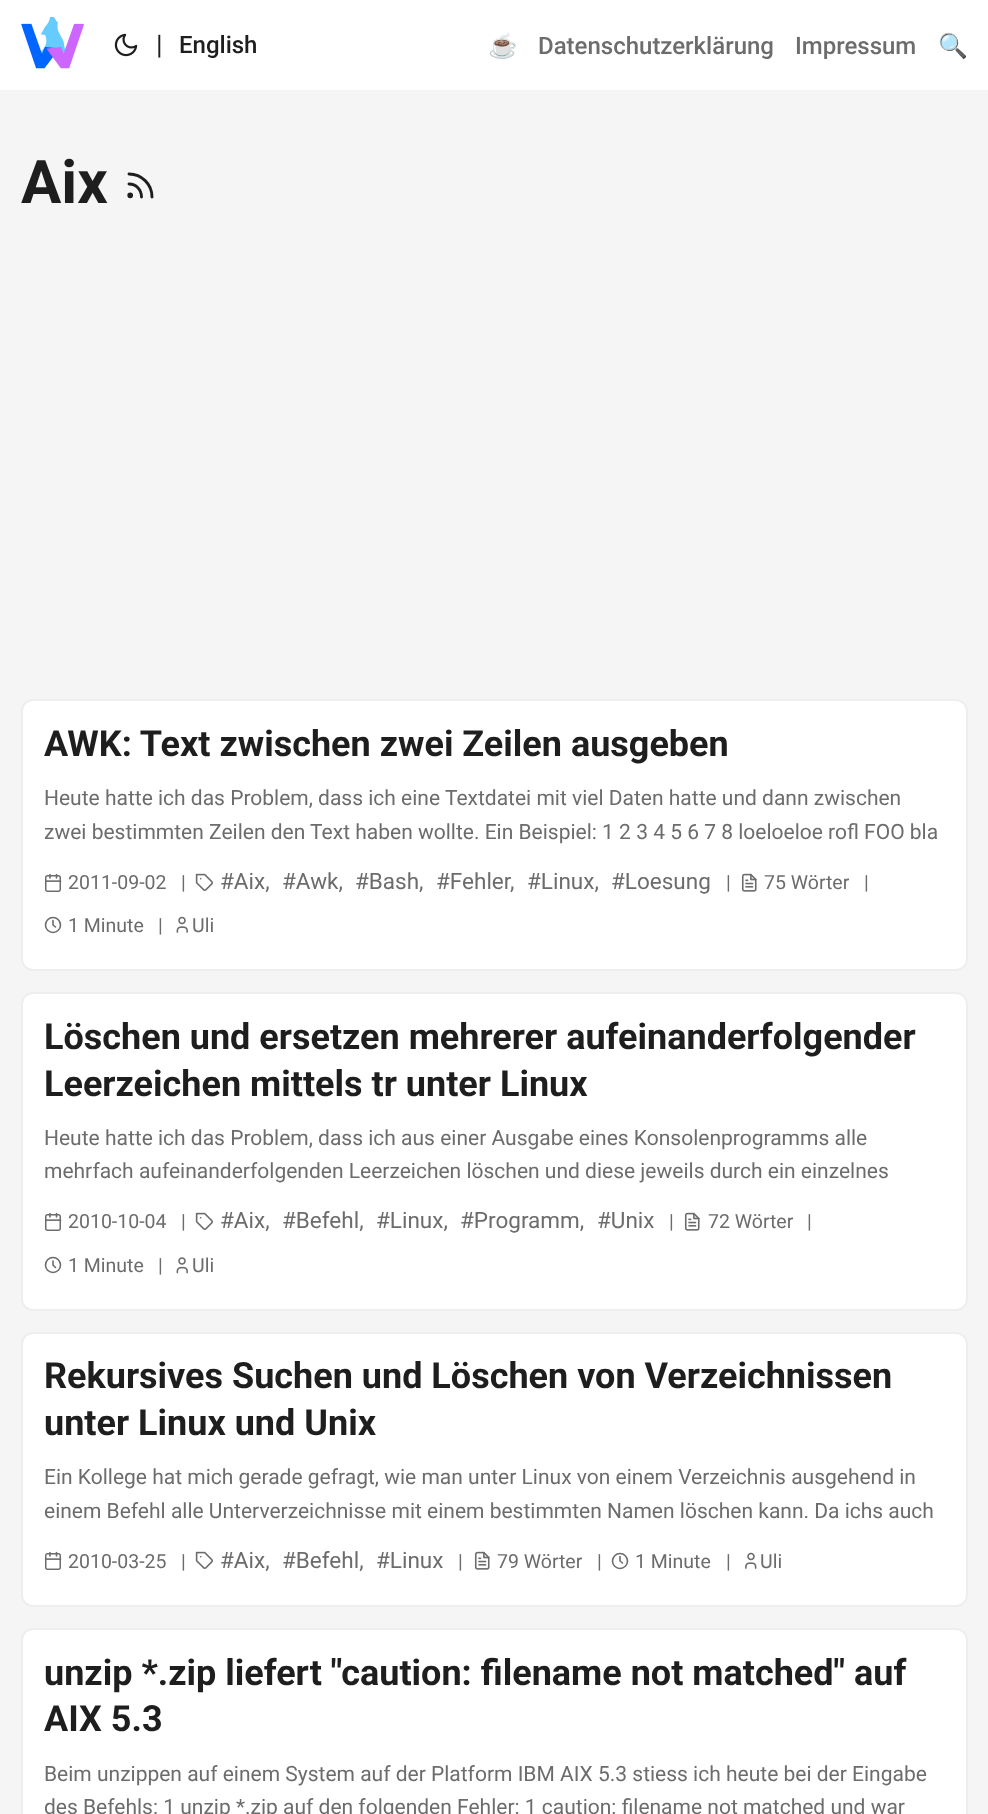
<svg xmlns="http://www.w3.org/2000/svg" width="988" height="1814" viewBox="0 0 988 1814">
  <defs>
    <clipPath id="clip1"><path d="M488 0h480v90H488z"/></clipPath>
  </defs>
  <rect width="100%" height="100%" fill="#f5f5f5"/>
  <path d="M0 0h988v90H0z" fill="#fff"/>
  <image x="21" y="17" width="63" height="52" href="img/1.png"/>
  <image x="114" y="33" width="24" height="24" href="img/2.png"/>
  <path d="M129 184C136 184 141.5 189.5 141.5 197M129 174C141.5 174 152 184 152 197" fill="none" stroke="#1e1e1e" stroke-width="2.9" stroke-linecap="round" stroke-linejoin="round"/>
  <circle cx="130.2" cy="195.3" r="1.4" fill="none" stroke="#1e1e1e" stroke-width="2.9"/>
  <rect x="22" y="700" width="945" height="270" rx="11" fill="#fff" stroke="#eee" stroke-width="2"/>
  <image x="45" y="873" width="17" height="19" href="img/3.png"/>
  <image x="195" y="873" width="18" height="18" href="img/4.png"/>
  <image x="741" y="873" width="16" height="19" href="img/5.png"/>
  <circle cx="53" cy="925" r="7.5" fill="none" stroke="#6c6c6c" stroke-width="1.6"/>
  <path d="M53 920.5V925L55.5 927" fill="none" stroke="#6c6c6c" stroke-width="1.6" stroke-linecap="round" stroke-linejoin="round"/>
  <image x="176" y="916" width="12" height="17" href="img/6.png"/>
  <rect x="22" y="993" width="945" height="317" rx="11" fill="#fff" stroke="#eee" stroke-width="2"/>
  <image x="45" y="1212" width="17" height="19" href="img/3.png"/>
  <image x="195" y="1212" width="18" height="18" href="img/4.png"/>
  <image x="684" y="1212" width="16" height="19" href="img/5.png"/>
  <circle cx="53" cy="1265" r="7.5" fill="none" stroke="#6c6c6c" stroke-width="1.6"/>
  <path d="M53 1261V1265L55.5 1267.5" fill="none" stroke="#6c6c6c" stroke-width="1.6" stroke-linecap="round" stroke-linejoin="round"/>
  <image x="176" y="1257" width="12" height="17" href="img/7.png"/>
  <rect x="22" y="1333" width="945" height="273" rx="11" fill="#fff" stroke="#eee" stroke-width="2"/>
  <image x="45" y="1551" width="17" height="19" href="img/3.png"/>
  <image x="195" y="1551" width="18" height="18" href="img/4.png"/>
  <image x="474" y="1551" width="16" height="19" href="img/5.png"/>
  <circle cx="620" cy="1561" r="7.5" fill="none" stroke="#6c6c6c" stroke-width="1.6"/>
  <path d="M620 1556.5V1561L622.5 1563" fill="none" stroke="#6c6c6c" stroke-width="1.6" stroke-linecap="round" stroke-linejoin="round"/>
  <image x="745" y="1552" width="12" height="17" href="img/8.png"/>
  <rect x="22" y="1629" width="945" height="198" rx="11" fill="#fff" stroke="#eee" stroke-width="2"/>
  <text x="156" y="54" font-family="Roboto" font-size="27" fill="#1e1e1e">|</text>
  <text x="179" y="53" font-family="Roboto" font-size="24" font-weight="500" fill="#1e1e1e">English</text>
  <g clip-path="url(#clip1)">
    <text x="488" y="54" font-family="Noto Color Emoji" font-size="24" fill="#6c6c6c">☕</text>
  </g>
  <g font-family="Roboto" font-size="24" font-weight="500" fill="#6c6c6c">
    <text x="538" y="54">Datenschutzerklärung</text>
    <text x="795" y="54">Impressum</text>
  </g>
  <text x="938" y="54" font-family="Noto Color Emoji" font-size="24" fill="#6c6c6c">🔍</text>
  <text x="21" y="203" font-family="Roboto" font-size="60" font-weight="bold" fill="#1e1e1e">Aix</text>
  <text x="44" y="756" font-family="Roboto" font-size="36" font-weight="bold" fill="#1e1e1e">AWK: Text zwischen zwei Zeilen ausgeben</text>
  <g font-family="Roboto" font-size="21" fill="#6c6c6c">
    <text x="44" y="805">Heute hatte ich das Problem, dass ich eine Textdatei mit viel Daten hatte und dann zwischen</text>
    <text x="44" y="839">zwei bestimmten Zeilen den Text haben wollte. Ein Beispiel: 1 2 3 4 5 6 7 8 loeloeloe rofl FOO bla</text>
  </g>
  <g font-family="Roboto" font-size="19.5" fill="#6c6c6c">
    <text x="68" y="889">2011-09-02</text>
    <text x="181" y="889">|</text>
  </g>
  <g font-family="Roboto" font-size="22.5" fill="#6c6c6c">
    <text x="220" y="889">#Aix,</text>
    <text x="282" y="889">#Awk,</text>
    <text x="355" y="889">#Bash,</text>
    <text x="436" y="889">#Fehler</text>
    <text x="527" y="889">#Linux,</text>
    <text x="611" y="889">#Loesung</text>
  </g>
  <text x="726" y="889" font-family="Roboto" font-size="19.5" fill="#6c6c6c">|</text>
  <text x="510" y="889" font-family="Roboto" font-size="22.5" fill="#6c6c6c">,</text>
  <g font-family="Roboto" font-size="19.5" fill="#6c6c6c">
    <text x="764" y="889">75 Wörter</text>
    <text x="864" y="889">|</text>
    <text x="68" y="932">1 Minute</text>
    <text x="158" y="932">|</text>
    <text x="192" y="932">Uli</text>
  </g>
  <g font-family="Roboto" font-size="36" font-weight="bold" fill="#1e1e1e">
    <text x="44" y="1049">Löschen und ersetzen mehrerer aufeinanderfolgender</text>
    <text x="44" y="1096">Leerzeichen mittels tr unter Linux</text>
  </g>
  <g font-family="Roboto" font-size="21" fill="#6c6c6c">
    <text x="44" y="1145">Heute hatte ich das Problem, dass ich aus einer Ausgabe eines Konsolenprogramms alle</text>
    <text x="44" y="1178">mehrfach aufeinanderfolgenden Leerzeichen löschen und diese jeweils durch ein einzelnes</text>
  </g>
  <g font-family="Roboto" font-size="19.5" fill="#6c6c6c">
    <text x="68" y="1228">2010-10-04</text>
    <text x="181" y="1228">|</text>
  </g>
  <g font-family="Roboto" font-size="22.5" fill="#6c6c6c">
    <text x="220" y="1228">#Aix,</text>
    <text x="282" y="1228">#Befehl,</text>
    <text x="376" y="1228">#Linux,</text>
    <text x="460" y="1228">#Programm,</text>
    <text x="597" y="1228">#Unix</text>
  </g>
  <g font-family="Roboto" font-size="19.5" fill="#6c6c6c">
    <text x="669" y="1228">|</text>
    <text x="708" y="1228">72 Wörter</text>
    <text x="807" y="1228">|</text>
    <text x="68" y="1272">1 Minute</text>
    <text x="158" y="1272">|</text>
    <text x="192" y="1272">Uli</text>
  </g>
  <g font-family="Roboto" font-size="36" font-weight="bold" fill="#1e1e1e">
    <text x="44" y="1388">Rekursives Suchen und Löschen von Verzeichnissen</text>
    <text x="44" y="1435">unter Linux und Unix</text>
  </g>
  <g font-family="Roboto" font-size="21" fill="#6c6c6c">
    <text x="44" y="1484">Ein Kollege hat mich gerade gefragt, wie man unter Linux von einem Verzeichnis ausgehend in</text>
    <text x="44" y="1518">einem Befehl alle Unterverzeichnisse mit einem bestimmten Namen löschen kann. Da ichs auch</text>
  </g>
  <g font-family="Roboto" font-size="19.5" fill="#6c6c6c">
    <text x="68" y="1568">2010-03-25</text>
    <text x="181" y="1568">|</text>
  </g>
  <g font-family="Roboto" font-size="22.5" fill="#6c6c6c">
    <text x="220" y="1568">#Aix,</text>
    <text x="282" y="1568">#Befehl,</text>
    <text x="376" y="1568">#Linux</text>
  </g>
  <g font-family="Roboto" font-size="19.5" fill="#6c6c6c">
    <text x="458" y="1568">|</text>
    <text x="497" y="1568">79 Wörter</text>
    <text x="597" y="1568">|</text>
    <text x="635" y="1568">1 Minute</text>
    <text x="726" y="1568">|</text>
    <text x="760" y="1568">Uli</text>
  </g>
  <g font-family="Roboto" font-size="36" font-weight="bold" fill="#1e1e1e">
    <text x="44" y="1685">unzip *.zip liefert "caution: filename not matched" auf</text>
    <text x="44" y="1731">AIX 5.3</text>
  </g>
  <g font-family="Roboto" font-size="21" fill="#6c6c6c">
    <text x="44" y="1781">Beim unzippen auf einem System auf der Platform IBM AIX 5.3 stiess ich heute bei der Eingabe</text>
    <text x="44" y="1814">des Befehls: 1 unzip *.zip auf den folgenden Fehler: 1 caution: filename not matched und war</text>
  </g>
</svg>
